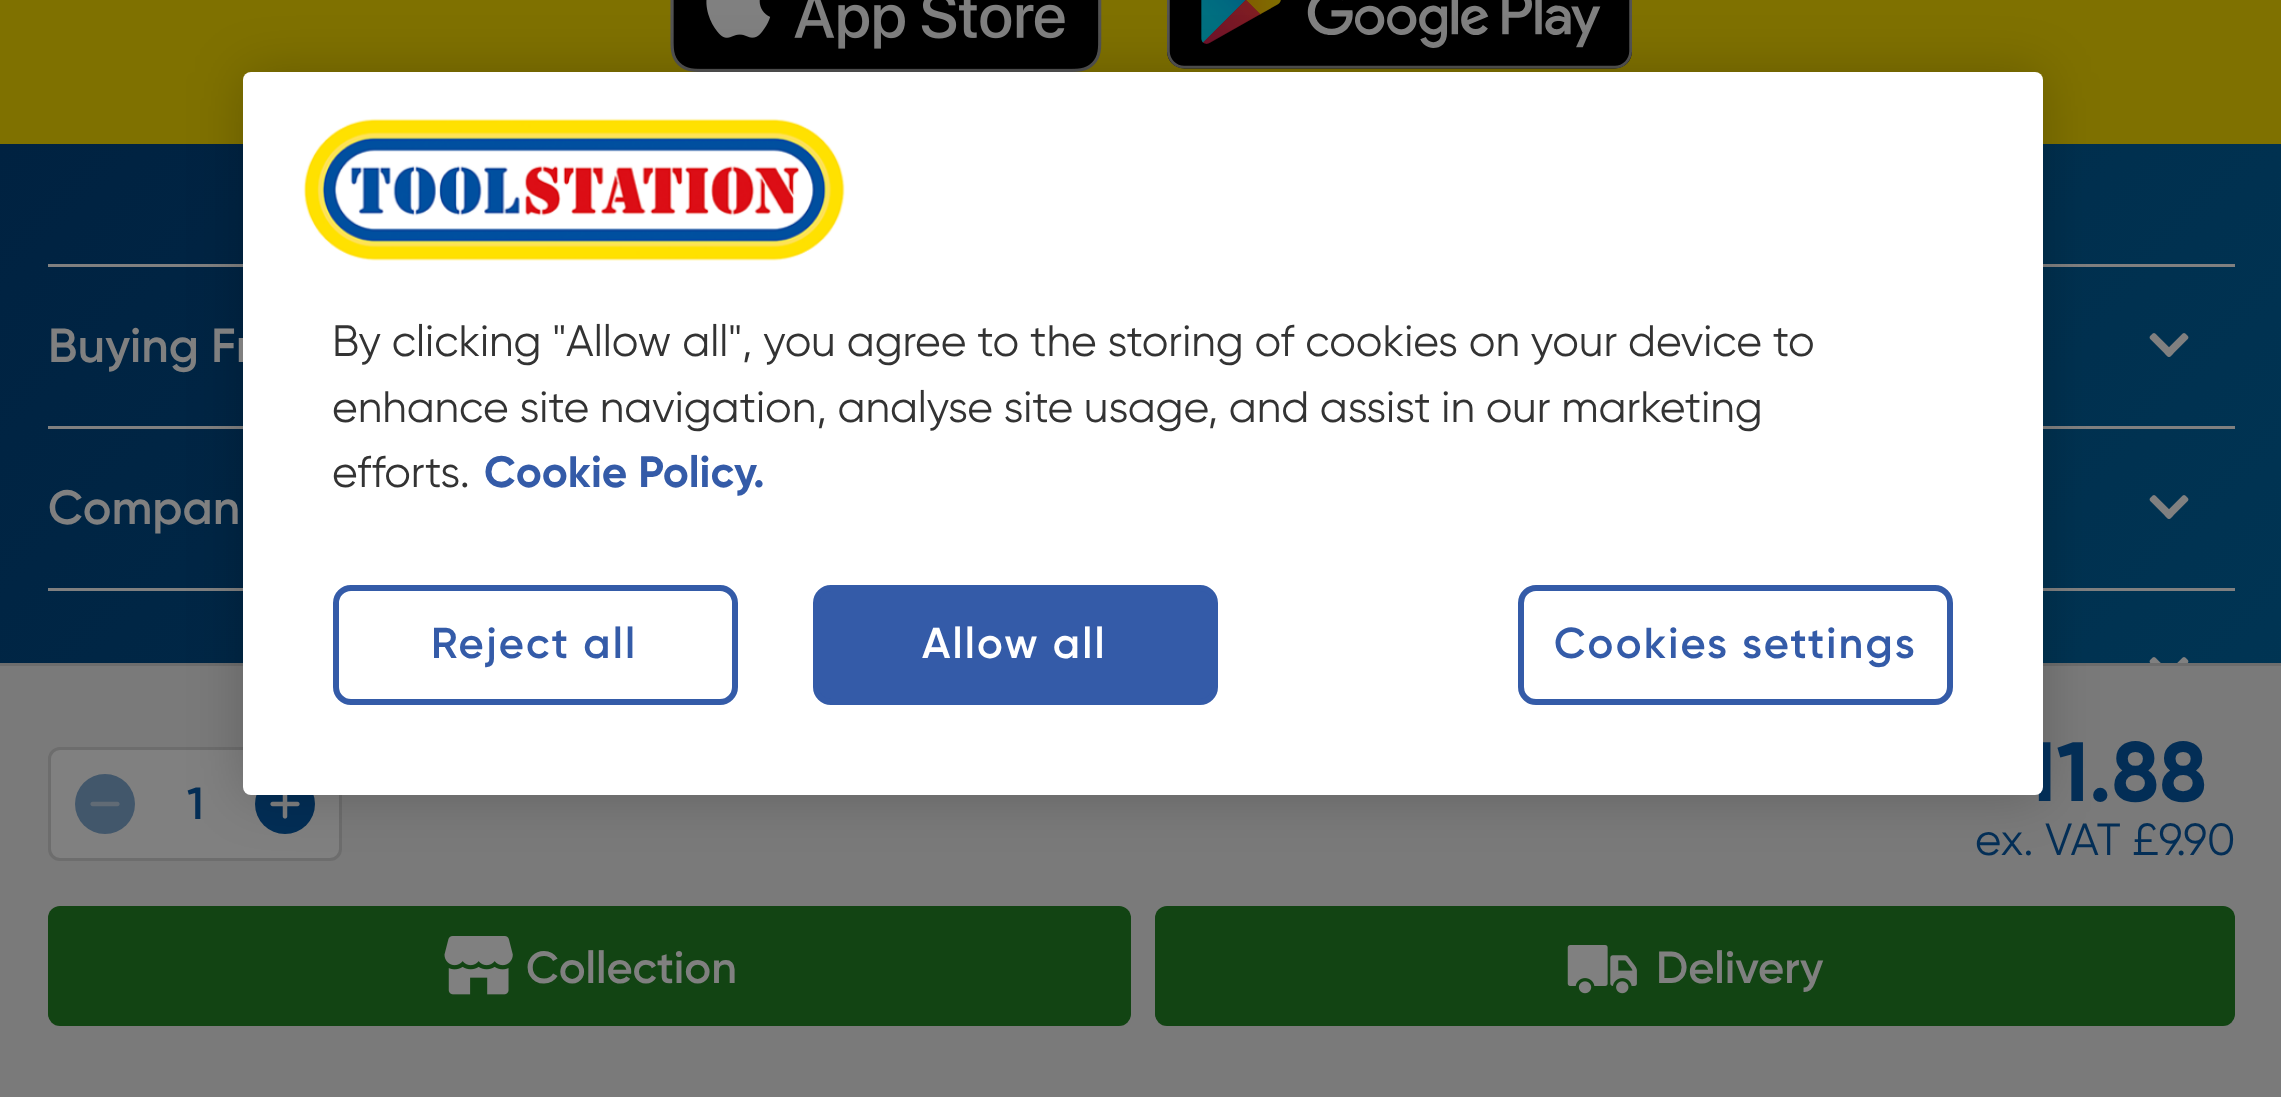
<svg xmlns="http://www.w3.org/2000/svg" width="2281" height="1097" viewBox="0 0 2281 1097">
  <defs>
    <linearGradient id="g1" gradientUnits="userSpaceOnUse" x1="2174" y1="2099" x2="109" y2="35"><stop offset="0" stop-color="#003d5c"/><stop offset="1" stop-color="#002241"/></linearGradient>
  </defs>
  <rect width="100%" height="100%" fill="#7f7100"/>
  <image x="670" y="0" width="432" height="72" href="img/2.png"/>
  <image x="1167" y="0" width="465" height="69" href="img/3.png"/>
  <path d="M0 144h2281v519H0z" fill="url(#g1)"/>
  <path d="M48 264h2187v3H48z" fill="#808080"/>
  <path d="M48 426h2187v3H48z" fill="#808080"/>
  <path d="M48 588h2187v3H48z" fill="#808080"/>
  <path d="M0 666h2281v431H0z" fill="#7a7a7a"/>
  <path d="M0 663h2281v3H0z" fill="#6d6d6d"/>
  <rect x="49.5" y="748.5" width="291" height="111" rx="10.5" fill="#808080" stroke="#6d6d6d" stroke-width="3"/>
  <circle cx="285" cy="804" r="30" fill="#032e56"/>
  <image x="270" y="795" width="30" height="24" href="img/8.png"/>
  <rect x="243" y="72" width="1800" height="723" rx="8" fill="#00000033" filter="blur(27px)"/>
  <image x="2149" y="333" width="40" height="24" href="img/4.png"/>
  <image x="2149" y="495" width="40" height="24" href="img/5.png"/>
  <image x="2149" y="657" width="40" height="6" href="img/6.png"/>
  <circle cx="105" cy="804" r="30" fill="#42576b"/>
  <image x="90" y="801" width="30" height="6" href="img/7.png"/>
  <rect x="48" y="906" width="1083" height="120" rx="12" fill="#124413"/>
  <image x="444" y="936" width="69" height="59" href="img/9.png"/>
  <rect x="1155" y="906" width="1080" height="120" rx="12" fill="#124413"/>
  <image x="1567" y="945" width="70" height="49" href="img/10.png"/>
  <g font-family="Gilroy" font-size="48" font-weight="600" fill="#808080">
    <text x="48" y="362">Buying Fr</text>
    <text x="48" y="524">Compan</text>
  </g>
  <text x="187" y="819" font-family="Gilroy" font-size="45" font-weight="600" fill="#032e56">1</text>
  <text x="2024" y="801" font-family="Gilroy" font-size="84" font-weight="bold" fill="#032e56">11.88</text>
  <rect x="243" y="72" width="1800" height="723" rx="8" fill="#fff"/>
  <rect x="816" y="588" width="399" height="114" rx="15" fill="#345ba8" stroke="#345ba8" stroke-width="6"/>
  <text x="922" y="658" font-family="Gilroy" font-size="43.25" font-weight="600" letter-spacing="2.2" fill="#fff">Allow all</text>
  <rect x="336" y="588" width="399" height="114" rx="15" fill="none" stroke="#345ba8" stroke-width="6"/>
  <text x="431" y="658" font-family="Gilroy" font-size="43.25" font-weight="600" letter-spacing="2.2" fill="#345ba8">Reject all</text>
  <rect x="1521" y="588" width="429" height="114" rx="15" fill="none" stroke="#345ba8" stroke-width="6"/>
  <text x="1554" y="658" font-family="Gilroy" font-size="43.25" font-weight="600" letter-spacing="2.2" fill="#345ba8">Cookies settings</text>
  <text x="484" y="487" font-family="Gilroy" font-size="43.95" font-weight="bold" fill="#345ba8">Cookie Policy.</text>
  <g font-family="Gilroy" font-size="43.95" fill="#333">
    <text x="332" y="487">efforts.</text>
    <text x="332" y="422" word-spacing="-0.25">enhance site navigation, analyse site usage, and assist in our marketing</text>
    <text x="332" y="356" word-spacing="-0.1">By clicking "Allow all", you agree to the storing of cookies on your device to</text>
  </g>
  <image x="303" y="118" width="542" height="143" href="img/1.png"/>
  <text x="1975" y="855" font-family="Gilroy" font-size="45" fill="#032e56">ex. VAT £9.90</text>
  <g font-family="Gilroy" font-size="45" font-weight="600" fill="#808080">
    <text x="526" y="983">Collection</text>
    <text x="1656" y="983">Delivery</text>
  </g>
</svg>
